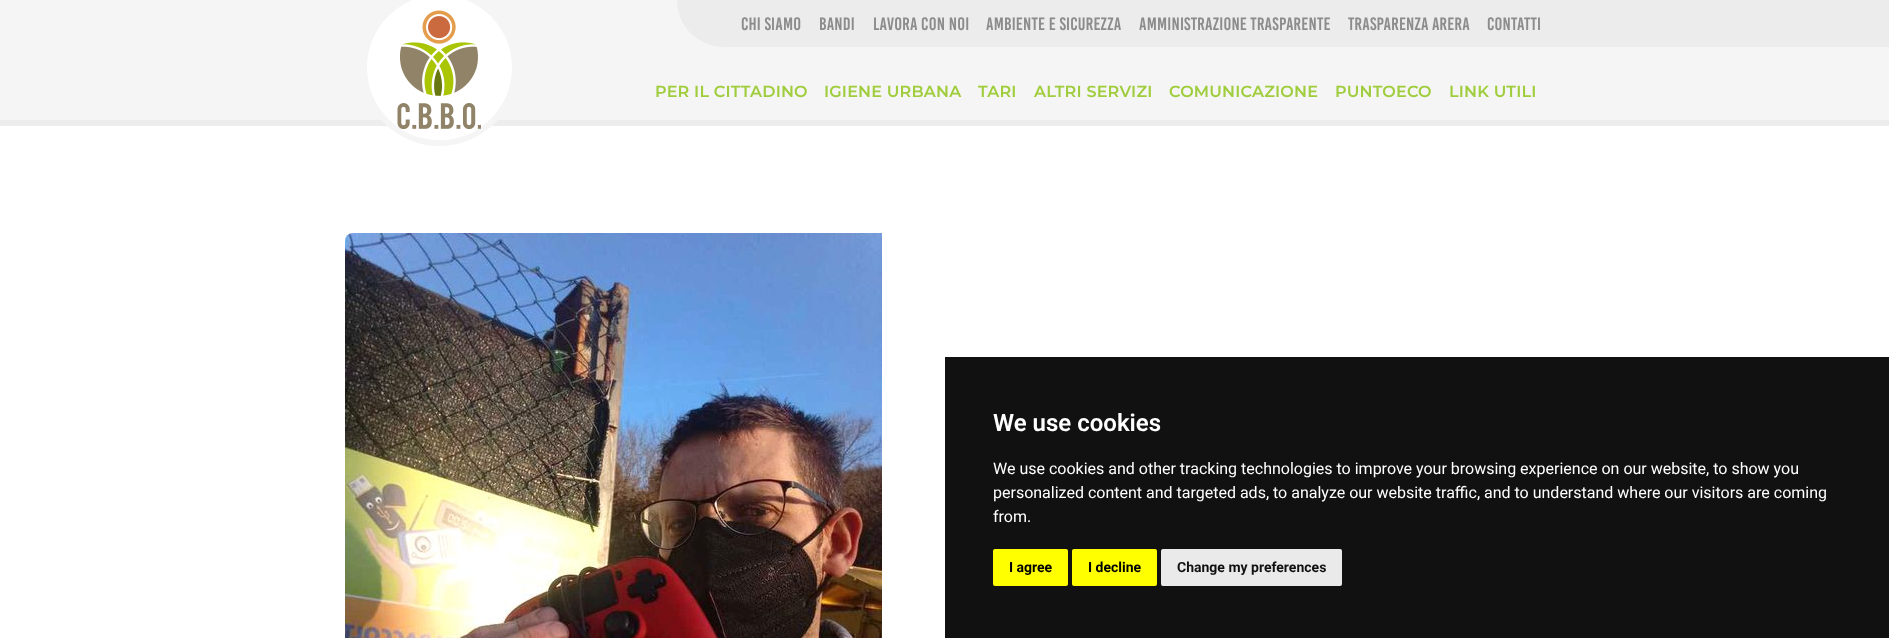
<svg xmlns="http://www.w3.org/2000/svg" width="1889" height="638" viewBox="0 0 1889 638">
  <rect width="100%" height="100%" fill="#fff"/>
  <path d="M0 120h1889v6H0z" fill="#ededed"/>
  <path d="M0 0h1889v120H0z" fill="#f5f5f5"/>
  <circle cx="439.5" cy="67.5" r="75.5" fill="none" stroke="#f5f5f5" stroke-width="6"/>
  <circle cx="439.5" cy="67.5" r="72.5" fill="#fff"/>
  <image x="397" y="10" width="84" height="119" href="img/1.png"/>
  <path d="M767 0h1122v47H767z" fill="#ececec"/>
  <path d="M677 0H767V47H724C698 47 677 26 677 0Z" fill="#ececec"/>
  <image x="345" y="233" width="537" height="405" href="img/2.png"/>
  <path d="M945 357h944v281H945z" fill="#111"/>
  <rect x="993" y="549" width="75" height="37" rx="2" fill="#ff0"/>
  <rect x="1072" y="549" width="85" height="37" rx="2" fill="#ff0"/>
  <rect x="1161" y="549" width="181" height="37" rx="2" fill="#eaeaea"/>
  <g font-family="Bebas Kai" font-size="18" letter-spacing="0.2" fill="#8c8c8c">
    <text x="741" y="30">CHI SIAMO</text>
    <text x="819" y="30">BANDI</text>
    <text x="873" y="30">LAVORA CON NOI</text>
    <text x="986" y="30">AMBIENTE E SICUREZZA</text>
    <text x="1139" y="30">AMMINISTRAZIONE TRASPARENTE</text>
    <text x="1348" y="30">TRASPARENZA ARERA</text>
    <text x="1487" y="30">CONTATTI</text>
  </g>
  <g font-family="Montserrat" font-size="16" font-weight="600" letter-spacing="0.2" fill="#a0cd3d">
    <text x="655" y="97">PER IL CITTADINO</text>
    <text x="824" y="97">IGIENE URBANA</text>
    <text x="978" y="97">TARI</text>
    <text x="1034" y="97">ALTRI SERVIZI</text>
    <text x="1169" y="97">COMUNICAZIONE</text>
    <text x="1335" y="97">PUNTOECO</text>
    <text x="1449" y="97">LINK UTILI</text>
  </g>
  <text x="993" y="431" font-family="Roboto" font-size="24" font-weight="600" fill="#fff">We use cookies</text>
  <g font-family="Roboto" font-size="16" fill="#fff">
    <text x="993" y="474">We use cookies and other tracking technologies to improve your browsing experience on our website, to show you</text>
    <text x="993" y="498">personalized content and targeted ads, to analyze our website traffic, and to understand where our visitors are coming</text>
    <text x="993" y="522">from.</text>
  </g>
  <g font-family="Roboto" font-size="14" font-weight="bold" fill="#000">
    <text x="1009" y="572">I agree</text>
    <text x="1088" y="572">I decline</text>
  </g>
  <text x="1177" y="572" font-family="Roboto" font-size="14" font-weight="bold" fill="#111">Change my preferences</text>
</svg>
